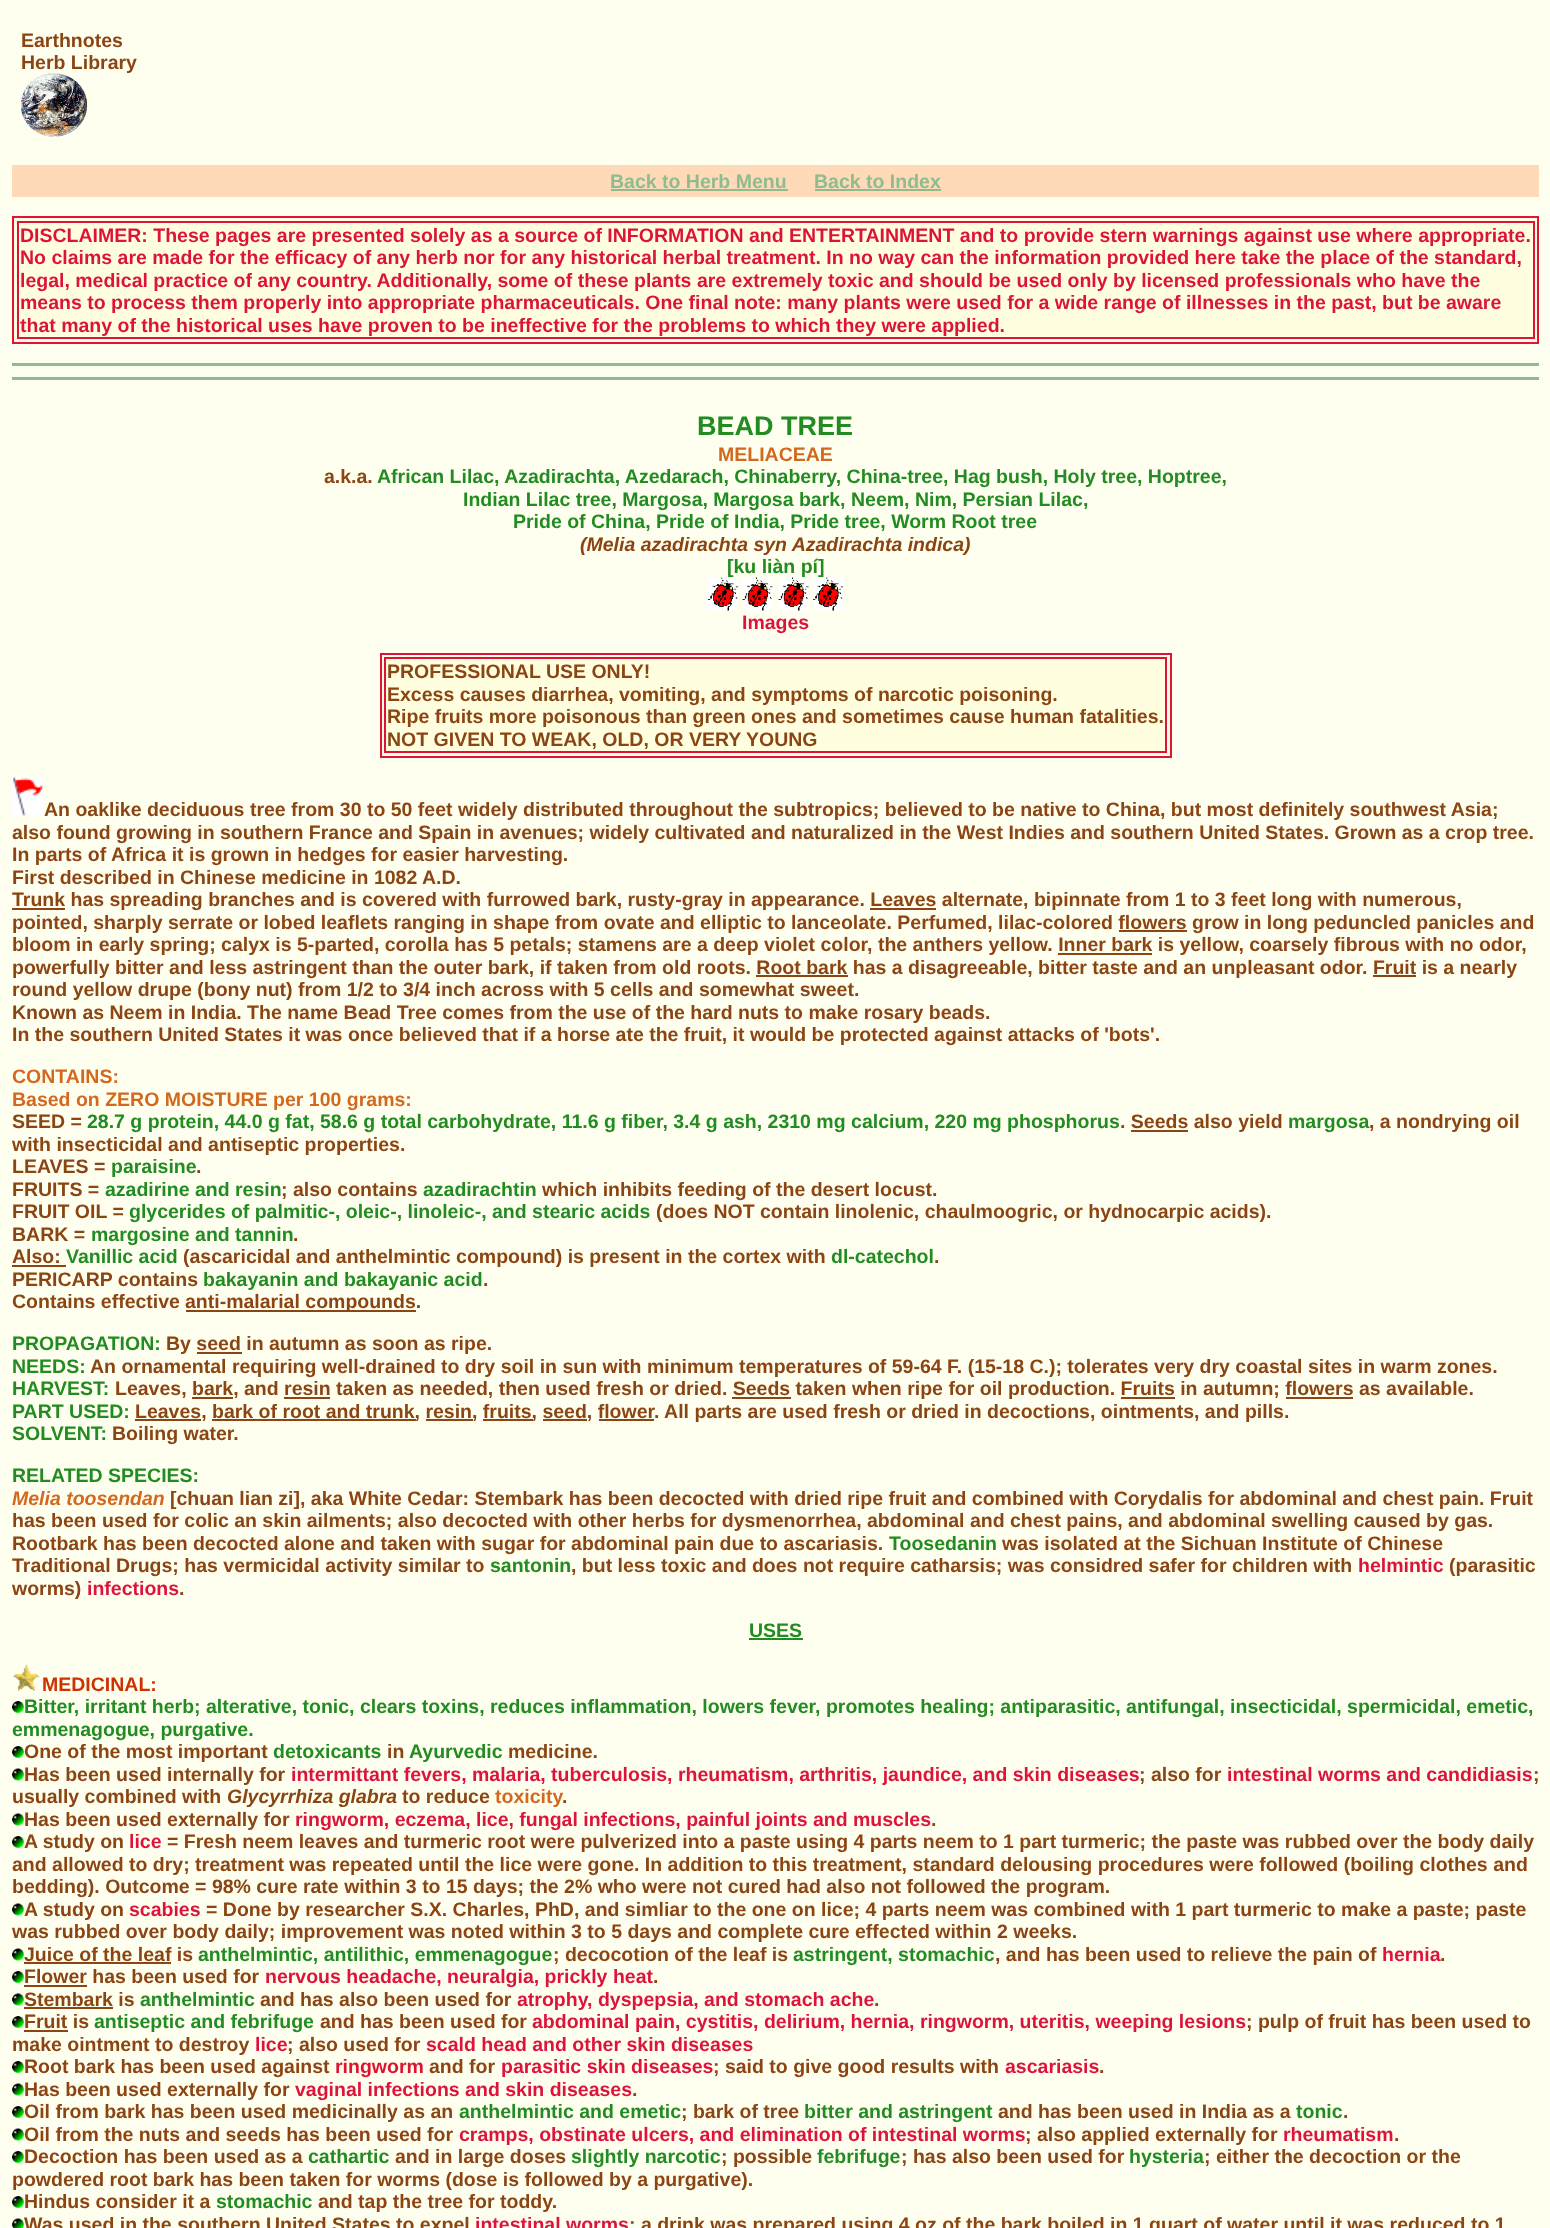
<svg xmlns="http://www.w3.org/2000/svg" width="1550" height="2228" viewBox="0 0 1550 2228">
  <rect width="100%" height="100%" fill="#fffff0"/>
  <path d="M12 165h1527v32H12z" fill="#ffdab9"/>
  <path d="M611 189h177v2H611z" fill="#8fbc8f"/>
  <path d="M815 189h126v2H815z" fill="#8fbc8f"/>
  <path d="M13 217h1525v126H13z" fill="#ffffe0" stroke="#dc143c" stroke-width="2"/>
  <path d="M18 222h1516v116H18z" fill="none" stroke="#dc143c" stroke-width="2"/>
  <path d="M12 363h1527v3H12z" fill="#8fbc8f"/>
  <path d="M12 377h1527v3H12z" fill="#8fbc8f"/>
  <path d="M381 654h790v103H381z" fill="#ffffe0" stroke="#dc143c" stroke-width="2"/>
  <path d="M385 658h781v94H385z" fill="none" stroke="#dc143c" stroke-width="2"/>
  <image x="12" y="777" width="32" height="39" href="img/6.png"/>
  <path d="M12 908h53v2H12z" fill="#8b4513"/>
  <path d="M870 908h66v2H870z" fill="#8b4513"/>
  <path d="M1119 930h68v2H1119z" fill="#8b4513"/>
  <path d="M1058 953h94v2H1058z" fill="#8b4513"/>
  <path d="M756 975h92v2H756z" fill="#8b4513"/>
  <path d="M1373 975h43v2H1373z" fill="#8b4513"/>
  <path d="M1131 1130h57v2H1131z" fill="#8b4513"/>
  <path d="M12 1265h54v2H12z" fill="#8b4513"/>
  <path d="M186 1310h230v2H186z" fill="#8b4513"/>
  <path d="M197 1352h45v2H197z" fill="#8b4513"/>
  <path d="M192 1397h41v2H192z" fill="#8b4513"/>
  <path d="M284 1397h46v2H284z" fill="#8b4513"/>
  <path d="M732 1397h59v2H732z" fill="#8b4513"/>
  <path d="M1121 1397h54v2H1121z" fill="#8b4513"/>
  <path d="M1286 1397h67v2H1286z" fill="#8b4513"/>
  <path d="M135 1419h66v2H135z" fill="#8b4513"/>
  <path d="M212 1419h204v2H212z" fill="#8b4513"/>
  <path d="M426 1419h47v2H426z" fill="#8b4513"/>
  <path d="M483 1419h50v2H483z" fill="#8b4513"/>
  <path d="M543 1419h44v2H543z" fill="#8b4513"/>
  <path d="M599 1419h55v2H599z" fill="#8b4513"/>
  <path d="M749 1638h54v2H749z" fill="#228b22"/>
  <image x="13" y="1664" width="27" height="27" href="img/7.png"/>
  <image x="12" y="1701" width="12" height="12" href="img/8.png"/>
  <image x="12" y="1746" width="12" height="12" href="img/8.png"/>
  <image x="12" y="1768" width="12" height="13" href="img/9.png"/>
  <image x="12" y="1813" width="12" height="13" href="img/9.png"/>
  <image x="12" y="1836" width="12" height="12" href="img/8.png"/>
  <image x="12" y="1903" width="12" height="13" href="img/9.png"/>
  <image x="12" y="1948" width="12" height="13" href="img/9.png"/>
  <path d="M24 1962h147v2H24z" fill="#8b4513"/>
  <image x="12" y="1971" width="12" height="12" href="img/8.png"/>
  <path d="M24 1985h63v2H24z" fill="#8b4513"/>
  <image x="12" y="1993" width="12" height="13" href="img/9.png"/>
  <path d="M24 2007h89v2H24z" fill="#8b4513"/>
  <image x="12" y="2016" width="12" height="12" href="img/8.png"/>
  <path d="M24 2030h44v2H24z" fill="#8b4513"/>
  <image x="12" y="2061" width="12" height="12" href="img/8.png"/>
  <image x="12" y="2083" width="12" height="13" href="img/10.png"/>
  <image x="12" y="2106" width="12" height="12" href="img/8.png"/>
  <image x="12" y="2128" width="12" height="13" href="img/9.png"/>
  <image x="12" y="2151" width="12" height="12" href="img/8.png"/>
  <image x="12" y="2196" width="12" height="12" href="img/8.png"/>
  <image x="12" y="2218" width="12" height="10" href="img/11.png"/>
  <g font-family="Liberation Sans" font-size="19.5" font-weight="bold" fill="#8b4513">
    <text x="21" y="47">Earthnotes</text>
    <text x="21" y="69">Herb Library</text>
  </g>
  <image x="21" y="73" width="66" height="64" href="img/1.png"/>
  <g font-family="Liberation Sans" font-size="19.5" font-weight="bold" fill="#8fbc8f">
    <text x="610" y="188">Back to Herb Menu</text>
    <text x="814" y="188">Back to Index</text>
  </g>
  <g font-family="Liberation Sans" font-size="19.5" font-weight="bold" fill="#dc143c">
    <text x="20" y="242">DISCLAIMER: These pages are presented solely as a source of INFORMATION and ENTERTAINMENT and to provide stern warnings against use where appropriate.</text>
    <text x="20" y="264">No claims are made for the efficacy of any herb nor for any historical herbal treatment. In no way can the information provided here take the place of the standard,</text>
    <text x="20" y="287">legal, medical practice of any country. Additionally, some of these plants are extremely toxic and should be used only by licensed professionals who have the</text>
    <text x="20" y="309">means to process them properly into appropriate pharmaceuticals. One final note: many plants were used for a wide range of illnesses in the past, but be aware</text>
    <text x="20" y="332">that many of the historical uses have proven to be ineffective for the problems to which they were applied.</text>
  </g>
  <text x="697" y="435" font-family="Liberation Sans" font-size="27" font-weight="bold" fill="#228b22">BEAD TREE</text>
  <text x="718" y="461" font-family="Liberation Sans" font-size="19.5" font-weight="bold" fill="#d2691e">MELIACEAE</text>
  <text x="324" y="483" font-family="Liberation Sans" font-size="19.5" font-weight="bold" fill="#8b4513">a.k.a.</text>
  <g font-family="Liberation Sans" font-size="19.5" font-weight="bold" fill="#228b22">
    <text x="377" y="483">African Lilac, Azadirachta, Azedarach, Chinaberry, China-tree, Hag bush, Holy tree, Hoptree,</text>
    <text x="463" y="506">Indian Lilac tree, Margosa, Margosa bark, Neem, Nim, Persian Lilac,</text>
    <text x="513" y="528">Pride of China, Pride of India, Pride tree, Worm Root tree</text>
  </g>
  <text x="580" y="551" font-family="Liberation Sans" font-size="19.5" font-weight="bold" font-style="italic" fill="#8b4513">(Melia azadirachta syn Azadirachta indica)</text>
  <text x="727" y="573" font-family="Liberation Sans" font-size="19.5" font-weight="bold" fill="#228b22">[ku liàn pí]</text>
  <image x="708" y="577" width="30" height="34" href="img/2.png"/>
  <image x="742" y="577" width="31" height="34" href="img/3.png"/>
  <image x="778" y="577" width="31" height="34" href="img/4.png"/>
  <image x="813" y="577" width="30" height="34" href="img/5.png"/>
  <text x="742" y="629" font-family="Liberation Sans" font-size="19.5" font-weight="bold" fill="#dc143c">Images</text>
  <g font-family="Liberation Sans" font-size="19.5" font-weight="bold" fill="#8b4513">
    <text x="387" y="678">PROFESSIONAL USE ONLY!</text>
    <text x="387" y="701">Excess causes diarrhea, vomiting, and symptoms of narcotic poisoning.</text>
    <text x="387" y="723">Ripe fruits more poisonous than green ones and sometimes cause human fatalities.</text>
    <text x="387" y="746">NOT GIVEN TO WEAK, OLD, OR VERY YOUNG</text>
    <text x="44" y="816">An oaklike deciduous tree from 30 to 50 feet widely distributed throughout the subtropics; believed to be native to China, but most definitely southwest Asia;</text>
    <text x="12" y="839">also found growing in southern France and Spain in avenues; widely cultivated and naturalized in the West Indies and southern United States. Grown as a crop tree.</text>
    <text x="12" y="861">In parts of Africa it is grown in hedges for easier harvesting.</text>
    <text x="12" y="884">First described in Chinese medicine in 1082 A.D.</text>
    <text x="12" y="906">Trunk has spreading branches and is covered with furrowed bark, rusty-gray in appearance. Leaves alternate, bipinnate from 1 to 3 feet long with numerous,</text>
    <text x="12" y="929">pointed, sharply serrate or lobed leaflets ranging in shape from ovate and elliptic to lanceolate. Perfumed, lilac-colored flowers grow in long peduncled panicles and</text>
    <text x="12" y="951">bloom in early spring; calyx is 5-parted, corolla has 5 petals; stamens are a deep violet color, the anthers yellow. Inner bark is yellow, coarsely fibrous with no odor,</text>
    <text x="12" y="974">powerfully bitter and less astringent than the outer bark, if taken from old roots. Root bark has a disagreeable, bitter taste and an unpleasant odor. Fruit is a nearly</text>
    <text x="12" y="996">round yellow drupe (bony nut) from 1/2 to 3/4 inch across with 5 cells and somewhat sweet.</text>
    <text x="12" y="1019">Known as Neem in India. The name Bead Tree comes from the use of the hard nuts to make rosary beads.</text>
    <text x="12" y="1041">In the southern United States it was once believed that if a horse ate the fruit, it would be protected against attacks of 'bots'.</text>
  </g>
  <g font-family="Liberation Sans" font-size="19.5" font-weight="bold" fill="#d2691e">
    <text x="12" y="1083">CONTAINS:</text>
    <text x="12" y="1106">Based on ZERO MOISTURE per 100 grams:</text>
  </g>
  <text x="12" y="1128" font-family="Liberation Sans" font-size="19.5" font-weight="bold" fill="#8b4513">SEED =</text>
  <text x="87" y="1128" font-family="Liberation Sans" font-size="19.5" font-weight="bold" fill="#228b22">28.7 g protein, 44.0 g fat, 58.6 g total carbohydrate, 11.6 g fiber, 3.4 g ash, 2310 mg calcium, 220 mg phosphorus</text>
  <text x="1120" y="1128" font-family="Liberation Sans" font-size="19.5" font-weight="bold" fill="#8b4513">. Seeds also yield</text>
  <text x="1288" y="1128" font-family="Liberation Sans" font-size="19.5" font-weight="bold" fill="#228b22">margosa</text>
  <g font-family="Liberation Sans" font-size="19.5" font-weight="bold" fill="#8b4513">
    <text x="1369" y="1128">, a nondrying oil</text>
    <text x="12" y="1151">with insecticidal and antiseptic properties.</text>
    <text x="12" y="1173">LEAVES =</text>
  </g>
  <text x="111" y="1173" font-family="Liberation Sans" font-size="19.5" font-weight="bold" fill="#228b22">paraisine</text>
  <g font-family="Liberation Sans" font-size="19.5" font-weight="bold" fill="#8b4513">
    <text x="196" y="1173">.</text>
    <text x="12" y="1196">FRUITS =</text>
  </g>
  <text x="105" y="1196" font-family="Liberation Sans" font-size="19.5" font-weight="bold" fill="#228b22">azadirine and resin</text>
  <text x="281" y="1196" font-family="Liberation Sans" font-size="19.5" font-weight="bold" fill="#8b4513">; also contains</text>
  <text x="423" y="1196" font-family="Liberation Sans" font-size="19.5" font-weight="bold" fill="#228b22">azadirachtin</text>
  <g font-family="Liberation Sans" font-size="19.5" font-weight="bold" fill="#8b4513">
    <text x="542" y="1196">which inhibits feeding of the desert locust.</text>
    <text x="12" y="1218">FRUIT OIL =</text>
  </g>
  <text x="129" y="1218" font-family="Liberation Sans" font-size="19.5" font-weight="bold" fill="#228b22">glycerides of palmitic-, oleic-, linoleic-, and stearic acids</text>
  <g font-family="Liberation Sans" font-size="19.5" font-weight="bold" fill="#8b4513">
    <text x="656" y="1218">(does NOT contain linolenic, chaulmoogric, or hydnocarpic acids).</text>
    <text x="12" y="1241">BARK =</text>
  </g>
  <text x="91" y="1241" font-family="Liberation Sans" font-size="19.5" font-weight="bold" fill="#228b22">margosine and tannin</text>
  <g font-family="Liberation Sans" font-size="19.5" font-weight="bold" fill="#8b4513">
    <text x="293" y="1241">.</text>
    <text x="12" y="1263">Also:</text>
  </g>
  <text x="66" y="1263" font-family="Liberation Sans" font-size="19.5" font-weight="bold" fill="#228b22">Vanillic acid</text>
  <text x="183" y="1263" font-family="Liberation Sans" font-size="19.5" font-weight="bold" fill="#8b4513">(ascaricidal and anthelmintic compound) is present in the cortex with</text>
  <text x="831" y="1263" font-family="Liberation Sans" font-size="19.5" font-weight="bold" fill="#228b22">dl-catechol</text>
  <g font-family="Liberation Sans" font-size="19.5" font-weight="bold" fill="#8b4513">
    <text x="934" y="1263">.</text>
    <text x="12" y="1286">PERICARP contains</text>
  </g>
  <text x="203" y="1286" font-family="Liberation Sans" font-size="19.5" font-weight="bold" fill="#228b22">bakayanin and bakayanic acid</text>
  <g font-family="Liberation Sans" font-size="19.5" font-weight="bold" fill="#8b4513">
    <text x="483" y="1286">.</text>
    <text x="12" y="1308">Contains effective</text>
    <text x="185" y="1308">anti-malarial compounds.</text>
  </g>
  <text x="12" y="1350" font-family="Liberation Sans" font-size="19.5" font-weight="bold" fill="#228b22">PROPAGATION:</text>
  <text x="166" y="1350" font-family="Liberation Sans" font-size="19.5" font-weight="bold" fill="#8b4513">By seed in autumn as soon as ripe.</text>
  <text x="12" y="1373" font-family="Liberation Sans" font-size="19.5" font-weight="bold" fill="#228b22">NEEDS:</text>
  <text x="90" y="1373" font-family="Liberation Sans" font-size="19.5" font-weight="bold" fill="#8b4513">An ornamental requiring well-drained to dry soil in sun with minimum temperatures of 59-64 F. (15-18 C.); tolerates very dry coastal sites in warm zones.</text>
  <text x="12" y="1395" font-family="Liberation Sans" font-size="19.5" font-weight="bold" fill="#228b22">HARVEST:</text>
  <text x="115" y="1395" font-family="Liberation Sans" font-size="19.5" font-weight="bold" fill="#8b4513">Leaves, bark, and resin taken as needed, then used fresh or dried. Seeds taken when ripe for oil production. Fruits in autumn; flowers as available.</text>
  <text x="12" y="1418" font-family="Liberation Sans" font-size="19.5" font-weight="bold" fill="#228b22">PART USED:</text>
  <g font-family="Liberation Sans" font-size="19.5" font-weight="bold" fill="#8b4513">
    <text x="135" y="1418">Leaves, bark of root and trunk, resin, fruits, seed, flower</text>
    <text x="654" y="1418">. All parts are used fresh or dried in decoctions, ointments, and pills.</text>
  </g>
  <text x="12" y="1440" font-family="Liberation Sans" font-size="19.5" font-weight="bold" fill="#228b22">SOLVENT:</text>
  <text x="112" y="1440" font-family="Liberation Sans" font-size="19.5" font-weight="bold" fill="#8b4513">Boiling water.</text>
  <text x="12" y="1482" font-family="Liberation Sans" font-size="19.5" font-weight="bold" fill="#228b22">RELATED SPECIES:</text>
  <text x="12" y="1505" font-family="Liberation Sans" font-size="19.5" font-weight="bold" font-style="italic" fill="#d2691e">Melia toosendan</text>
  <g font-family="Liberation Sans" font-size="19.5" font-weight="bold" fill="#8b4513">
    <text x="170" y="1505">[chuan lian zi], aka White Cedar: Stembark has been decocted with dried ripe fruit and combined with Corydalis for abdominal and chest pain. Fruit</text>
    <text x="12" y="1527">has been used for colic an skin ailments; also decocted with other herbs for dysmenorrhea, abdominal and chest pains, and abdominal swelling caused by gas.</text>
    <text x="12" y="1550">Rootbark has been decocted alone and taken with sugar for abdominal pain due to ascariasis.</text>
  </g>
  <text x="889" y="1550" font-family="Liberation Sans" font-size="19.5" font-weight="bold" fill="#228b22">Toosedanin</text>
  <g font-family="Liberation Sans" font-size="19.5" font-weight="bold" fill="#8b4513">
    <text x="1002" y="1550">was isolated at the Sichuan Institute of Chinese</text>
    <text x="12" y="1572">Traditional Drugs; has vermicidal activity similar to</text>
  </g>
  <text x="490" y="1572" font-family="Liberation Sans" font-size="19.5" font-weight="bold" fill="#228b22">santonin</text>
  <text x="571" y="1572" font-family="Liberation Sans" font-size="19.5" font-weight="bold" fill="#8b4513">, but less toxic and does not require catharsis; was considred safer for children with</text>
  <text x="1358" y="1572" font-family="Liberation Sans" font-size="19.5" font-weight="bold" fill="#dc143c">helmintic</text>
  <g font-family="Liberation Sans" font-size="19.5" font-weight="bold" fill="#8b4513">
    <text x="1449" y="1572">(parasitic</text>
    <text x="12" y="1595">worms)</text>
  </g>
  <text x="87" y="1595" font-family="Liberation Sans" font-size="19.5" font-weight="bold" fill="#dc143c">infections</text>
  <text x="179" y="1595" font-family="Liberation Sans" font-size="19.5" font-weight="bold" fill="#8b4513">.</text>
  <text x="749" y="1637" font-family="Liberation Sans" font-size="19.5" font-weight="bold" fill="#228b22">USES</text>
  <text x="42" y="1691" font-family="Liberation Sans" font-size="19.5" font-weight="bold" fill="#c30">MEDICINAL:</text>
  <g font-family="Liberation Sans" font-size="19.5" font-weight="bold" fill="#228b22">
    <text x="24" y="1713">Bitter, irritant herb; alterative, tonic, clears toxins, reduces inflammation, lowers fever, promotes healing; antiparasitic, antifungal, insecticidal, spermicidal, emetic,</text>
    <text x="12" y="1736">emmenagogue, purgative.</text>
  </g>
  <text x="24" y="1758" font-family="Liberation Sans" font-size="19.5" font-weight="bold" fill="#8b4513">One of the most important</text>
  <text x="273" y="1758" font-family="Liberation Sans" font-size="19.5" font-weight="bold" fill="#228b22">detoxicants</text>
  <text x="387" y="1758" font-family="Liberation Sans" font-size="19.5" font-weight="bold" fill="#8b4513">in</text>
  <text x="409" y="1758" font-family="Liberation Sans" font-size="19.5" font-weight="bold" fill="#228b22">Ayurvedic</text>
  <g font-family="Liberation Sans" font-size="19.5" font-weight="bold" fill="#8b4513">
    <text x="508" y="1758">medicine.</text>
    <text x="24" y="1781">Has been used internally for</text>
  </g>
  <text x="291" y="1781" font-family="Liberation Sans" font-size="19.5" font-weight="bold" fill="#dc143c">intermittant fevers, malaria, tuberculosis, rheumatism, arthritis, jaundice, and skin diseases</text>
  <text x="1139" y="1781" font-family="Liberation Sans" font-size="19.5" font-weight="bold" fill="#8b4513">; also for</text>
  <text x="1227" y="1781" font-family="Liberation Sans" font-size="19.5" font-weight="bold" fill="#dc143c">intestinal worms and candidiasis</text>
  <g font-family="Liberation Sans" font-size="19.5" font-weight="bold" fill="#8b4513">
    <text x="1533" y="1781">;</text>
    <text x="12" y="1803">usually combined with</text>
  </g>
  <text x="227" y="1803" font-family="Liberation Sans" font-size="19.5" font-weight="bold" font-style="italic" fill="#8b4513">Glycyrrhiza glabra</text>
  <text x="402" y="1803" font-family="Liberation Sans" font-size="19.5" font-weight="bold" fill="#8b4513">to reduce</text>
  <text x="495" y="1803" font-family="Liberation Sans" font-size="19.5" font-weight="bold" fill="#d2691e">toxicity</text>
  <g font-family="Liberation Sans" font-size="19.5" font-weight="bold" fill="#8b4513">
    <text x="562" y="1803">.</text>
    <text x="24" y="1826">Has been used externally for</text>
  </g>
  <text x="295" y="1826" font-family="Liberation Sans" font-size="19.5" font-weight="bold" fill="#dc143c">ringworm, eczema, lice, fungal infections, painful joints and muscles</text>
  <g font-family="Liberation Sans" font-size="19.5" font-weight="bold" fill="#8b4513">
    <text x="931" y="1826">.</text>
    <text x="24" y="1848">A study on</text>
  </g>
  <text x="129" y="1848" font-family="Liberation Sans" font-size="19.5" font-weight="bold" fill="#dc143c">lice</text>
  <g font-family="Liberation Sans" font-size="19.5" font-weight="bold" fill="#8b4513">
    <text x="167" y="1848">= Fresh neem leaves and turmeric root were pulverized into a paste using 4 parts neem to 1 part turmeric; the paste was rubbed over the body daily</text>
    <text x="12" y="1871">and allowed to dry; treatment was repeated until the lice were gone. In addition to this treatment, standard delousing procedures were followed (boiling clothes and</text>
    <text x="12" y="1893">bedding). Outcome = 98% cure rate within 3 to 15 days; the 2% who were not cured had also not followed the program.</text>
    <text x="24" y="1916">A study on</text>
  </g>
  <text x="129" y="1916" font-family="Liberation Sans" font-size="19.5" font-weight="bold" fill="#dc143c">scabies</text>
  <g font-family="Liberation Sans" font-size="19.5" font-weight="bold" fill="#8b4513">
    <text x="206" y="1916">= Done by researcher S.X. Charles, PhD, and simliar to the one on lice; 4 parts neem was combined with 1 part turmeric to make a paste; paste</text>
    <text x="12" y="1938">was rubbed over body daily; improvement was noted within 3 to 5 days and complete cure effected within 2 weeks.</text>
    <text x="24" y="1961">Juice of the leaf is</text>
  </g>
  <text x="198" y="1961" font-family="Liberation Sans" font-size="19.5" font-weight="bold" fill="#228b22">anthelmintic, antilithic, emmenagogue</text>
  <text x="553" y="1961" font-family="Liberation Sans" font-size="19.5" font-weight="bold" fill="#8b4513">; decocotion of the leaf is</text>
  <text x="793" y="1961" font-family="Liberation Sans" font-size="19.5" font-weight="bold" fill="#228b22">astringent, stomachic</text>
  <text x="995" y="1961" font-family="Liberation Sans" font-size="19.5" font-weight="bold" fill="#8b4513">, and has been used to relieve the pain of</text>
  <text x="1382" y="1961" font-family="Liberation Sans" font-size="19.5" font-weight="bold" fill="#dc143c">hernia</text>
  <g font-family="Liberation Sans" font-size="19.5" font-weight="bold" fill="#8b4513">
    <text x="1440" y="1961">.</text>
    <text x="24" y="1983">Flower has been used for</text>
  </g>
  <text x="265" y="1983" font-family="Liberation Sans" font-size="19.5" font-weight="bold" fill="#dc143c">nervous headache, neuralgia, prickly heat</text>
  <g font-family="Liberation Sans" font-size="19.5" font-weight="bold" fill="#8b4513">
    <text x="653" y="1983">.</text>
    <text x="24" y="2006">Stembark is</text>
  </g>
  <text x="140" y="2006" font-family="Liberation Sans" font-size="19.5" font-weight="bold" fill="#228b22">anthelmintic</text>
  <text x="260" y="2006" font-family="Liberation Sans" font-size="19.5" font-weight="bold" fill="#8b4513">and has also been used for</text>
  <text x="517" y="2006" font-family="Liberation Sans" font-size="19.5" font-weight="bold" fill="#dc143c">atrophy, dyspepsia, and stomach ache</text>
  <g font-family="Liberation Sans" font-size="19.5" font-weight="bold" fill="#8b4513">
    <text x="874" y="2006">.</text>
    <text x="24" y="2028">Fruit is</text>
  </g>
  <text x="94" y="2028" font-family="Liberation Sans" font-size="19.5" font-weight="bold" fill="#228b22">antiseptic and febrifuge</text>
  <text x="320" y="2028" font-family="Liberation Sans" font-size="19.5" font-weight="bold" fill="#8b4513">and has been used for</text>
  <text x="532" y="2028" font-family="Liberation Sans" font-size="19.5" font-weight="bold" fill="#dc143c">abdominal pain, cystitis, delirium, hernia, ringworm, uteritis, weeping lesions</text>
  <g font-family="Liberation Sans" font-size="19.5" font-weight="bold" fill="#8b4513">
    <text x="1246" y="2028">; pulp of fruit has been used to</text>
    <text x="12" y="2051">make ointment to destroy</text>
  </g>
  <text x="255" y="2051" font-family="Liberation Sans" font-size="19.5" font-weight="bold" fill="#dc143c">lice</text>
  <text x="287" y="2051" font-family="Liberation Sans" font-size="19.5" font-weight="bold" fill="#8b4513">; also used for</text>
  <text x="426" y="2051" font-family="Liberation Sans" font-size="19.5" font-weight="bold" fill="#dc143c">scald head and other skin diseases</text>
  <text x="24" y="2073" font-family="Liberation Sans" font-size="19.5" font-weight="bold" fill="#8b4513">Root bark has been used against</text>
  <text x="335" y="2073" font-family="Liberation Sans" font-size="19.5" font-weight="bold" fill="#dc1430">ringworm</text>
  <text x="429" y="2073" font-family="Liberation Sans" font-size="19.5" font-weight="bold" fill="#8b4513">and for</text>
  <text x="501" y="2073" font-family="Liberation Sans" font-size="19.5" font-weight="bold" fill="#dc143c">parasitic skin diseases</text>
  <text x="713" y="2073" font-family="Liberation Sans" font-size="19.5" font-weight="bold" fill="#8b4513">; said to give good results with</text>
  <text x="1005" y="2073" font-family="Liberation Sans" font-size="19.5" font-weight="bold" fill="#dc143c">ascariasis</text>
  <g font-family="Liberation Sans" font-size="19.5" font-weight="bold" fill="#8b4513">
    <text x="1099" y="2073">.</text>
    <text x="24" y="2096">Has been used externally for</text>
  </g>
  <text x="295" y="2096" font-family="Liberation Sans" font-size="19.5" font-weight="bold" fill="#dc143c">vaginal infections and skin diseases</text>
  <g font-family="Liberation Sans" font-size="19.5" font-weight="bold" fill="#8b4513">
    <text x="632" y="2096">.</text>
    <text x="24" y="2118">Oil from bark has been used medicinally as an</text>
  </g>
  <text x="459" y="2118" font-family="Liberation Sans" font-size="19.5" font-weight="bold" fill="#228b22">anthelmintic and emetic</text>
  <text x="681" y="2118" font-family="Liberation Sans" font-size="19.5" font-weight="bold" fill="#8b4513">; bark of tree</text>
  <text x="804" y="2118" font-family="Liberation Sans" font-size="19.5" font-weight="bold" fill="#228b22">bitter and astringent</text>
  <text x="998" y="2118" font-family="Liberation Sans" font-size="19.5" font-weight="bold" fill="#8b4513">and has been used in India as a</text>
  <text x="1296" y="2118" font-family="Liberation Sans" font-size="19.5" font-weight="bold" fill="#228b22">tonic</text>
  <g font-family="Liberation Sans" font-size="19.5" font-weight="bold" fill="#8b4513">
    <text x="1343" y="2118">.</text>
    <text x="24" y="2141">Oil from the nuts and seeds has been used for</text>
  </g>
  <text x="459" y="2141" font-family="Liberation Sans" font-size="19.5" font-weight="bold" fill="#dc143c">cramps, obstinate ulcers, and elimination of intestinal worms</text>
  <text x="1025" y="2141" font-family="Liberation Sans" font-size="19.5" font-weight="bold" fill="#8b4513">; also applied externally for</text>
  <text x="1283" y="2141" font-family="Liberation Sans" font-size="19.5" font-weight="bold" fill="#dc143c">rheumatism</text>
  <g font-family="Liberation Sans" font-size="19.5" font-weight="bold" fill="#8b4513">
    <text x="1394" y="2141">.</text>
    <text x="24" y="2163">Decoction has been used as a</text>
  </g>
  <text x="308" y="2163" font-family="Liberation Sans" font-size="19.5" font-weight="bold" fill="#228b22">cathartic</text>
  <text x="395" y="2163" font-family="Liberation Sans" font-size="19.5" font-weight="bold" fill="#8b4513">and in large doses</text>
  <text x="571" y="2163" font-family="Liberation Sans" font-size="19.5" font-weight="bold" fill="#228b22">slightly narcotic</text>
  <text x="721" y="2163" font-family="Liberation Sans" font-size="19.5" font-weight="bold" fill="#8b4513">; possible</text>
  <text x="817" y="2163" font-family="Liberation Sans" font-size="19.5" font-weight="bold" fill="#228b22">febrifuge</text>
  <text x="901" y="2163" font-family="Liberation Sans" font-size="19.5" font-weight="bold" fill="#8b4513">; has also been used for</text>
  <text x="1129" y="2163" font-family="Liberation Sans" font-size="19.5" font-weight="bold" fill="#228b22">hysteria</text>
  <g font-family="Liberation Sans" font-size="19.5" font-weight="bold" fill="#8b4513">
    <text x="1204" y="2163">; either the decoction or the</text>
    <text x="12" y="2186">powdered root bark has been taken for worms (dose is followed by a purgative).</text>
    <text x="24" y="2208">Hindus consider it a</text>
  </g>
  <text x="216" y="2208" font-family="Liberation Sans" font-size="19.5" font-weight="bold" fill="#228b22">stomachic</text>
  <g font-family="Liberation Sans" font-size="19.5" font-weight="bold" fill="#8b4513">
    <text x="318" y="2208">and tap the tree for toddy.</text>
    <text x="24" y="2231">Was used in the southern United States to expel</text>
  </g>
  <text x="475" y="2231" font-family="Liberation Sans" font-size="19.5" font-weight="bold" fill="#dc143c">intestinal worms</text>
  <text x="629" y="2231" font-family="Liberation Sans" font-size="19.5" font-weight="bold" fill="#8b4513">; a drink was prepared using 4 oz of the bark boiled in 1 quart of water until it was reduced to 1</text>
</svg>
